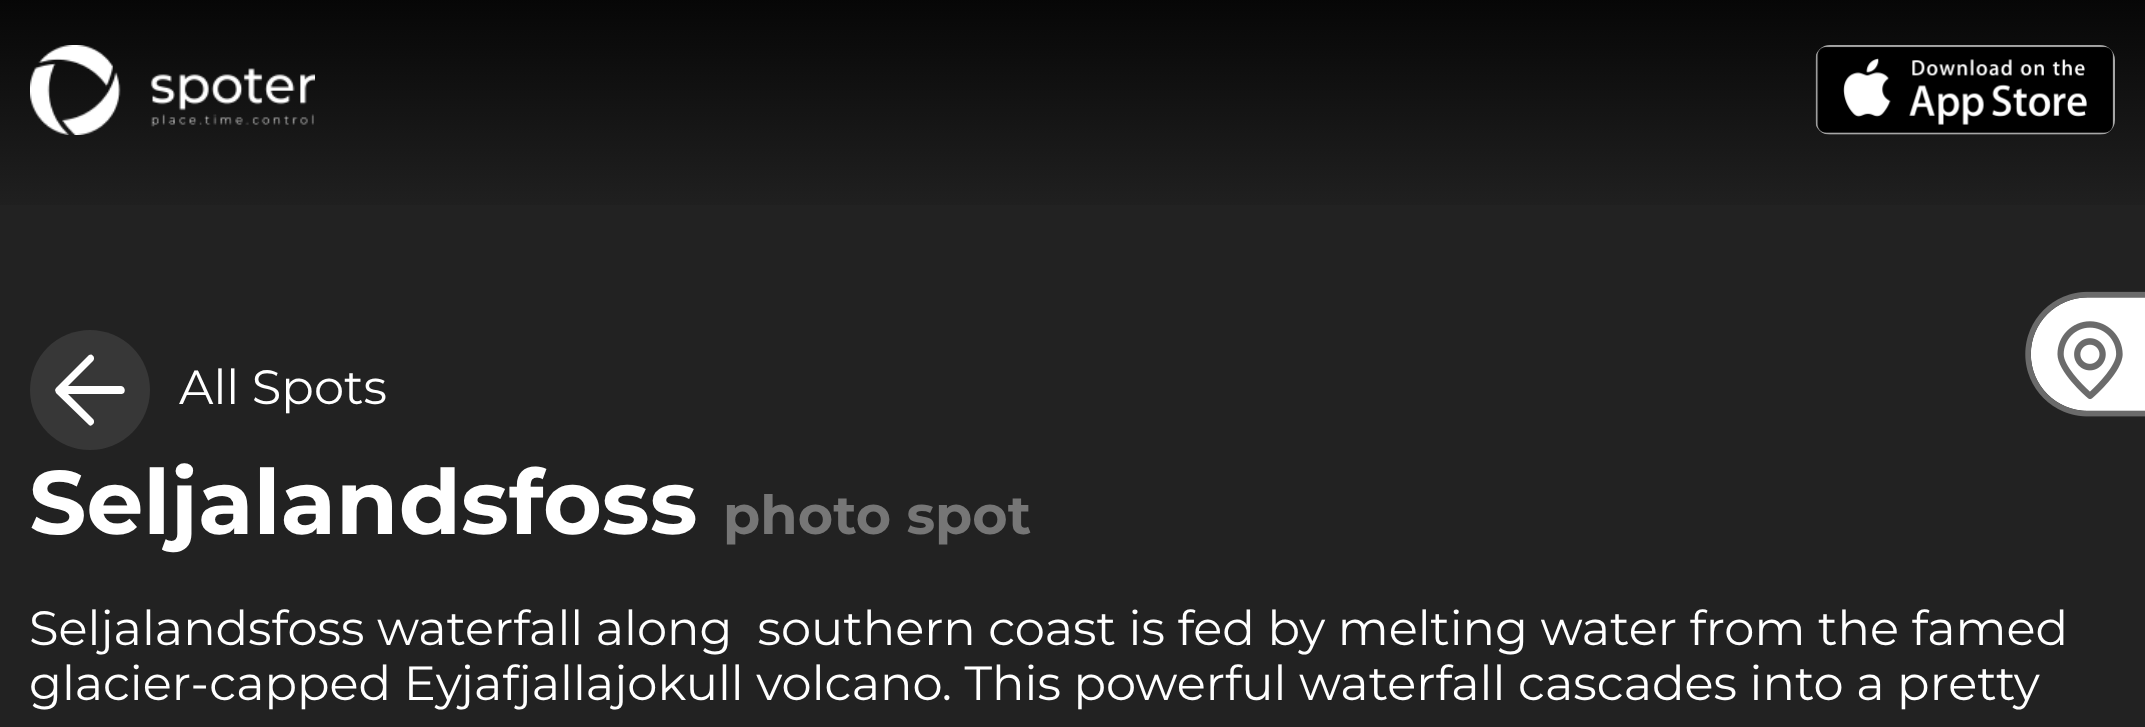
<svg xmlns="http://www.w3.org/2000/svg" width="2145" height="727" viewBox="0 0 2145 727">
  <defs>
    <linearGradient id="g1" gradientUnits="userSpaceOnUse" x1="1073" y1="-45" x2="1073" y2="225"><stop offset="0" stop-color="#010101"/><stop offset="1" stop-color="#222"/></linearGradient>
  </defs>
  <rect width="100%" height="100%" fill="#222"/>
  <path d="M0 0h2145v205H0z" fill="url(#g1)"/>
  <image x="30" y="45" width="285" height="90" href="img/1.png"/>
  <image x="1815" y="45" width="300" height="90" href="img/2.png"/>
  <image x="2025" y="291" width="120" height="126" href="img/3.png"/>
  <circle cx="90" cy="390" r="60" fill="#373737"/>
  <path d="M121 386H68L93 361C95 359 94 356 92 355C91 354 90 355 89 355L56 388L55 390L56 393L89 425C90 426 91 426 92 425C94 424 95 421 93 419L68 394H122L124 393C126 390 124 386 121 386Z" fill="#fff"/>
  <text x="179" y="404" font-family="Montserrat" font-size="48" fill="#fff">All Spots</text>
  <text x="29" y="534" font-family="Montserrat" font-size="90" font-weight="bold" fill="#fff">Seljalandsfoss</text>
  <text x="723" y="534" font-family="Montserrat" font-size="54" font-weight="bold" fill="#767676">photo spot</text>
  <g font-family="Montserrat" font-size="48" fill="#fff">
    <text x="29" y="645" xml:space="preserve">Seljalandsfoss waterfall along  southern coast is fed by melting water from the famed</text>
    <text x="29" y="700">glacier-capped Eyjafjallajokull volcano. This powerful waterfall cascades into a pretty</text>
  </g>
</svg>
